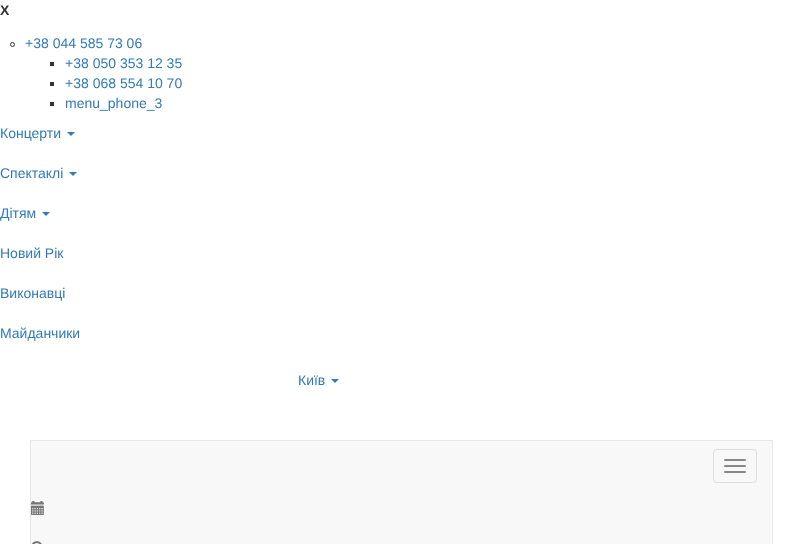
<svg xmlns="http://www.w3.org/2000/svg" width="803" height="544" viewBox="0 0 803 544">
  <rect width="100%" height="100%" fill="#fff"/>
  <circle cx="12.5" cy="44.5" r="2" fill="none" stroke="#333"/>
  <path d="M50 62h4v4H50z" fill="#333"/>
  <path d="M50 82h4v4H50z" fill="#333"/>
  <path d="M50 102h4v4H50z" fill="#333"/>
  <path d="M67 132H75L71 136Z" fill="#337ab7"/>
  <path d="M69 172H77L73 176Z" fill="#337ab7"/>
  <path d="M42 212H50L46 216Z" fill="#337ab7"/>
  <path d="M331 379H339L335 383Z" fill="#337ab7"/>
  <path d="M30.5 440.5h742v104H30.5z" fill="#f8f8f8" stroke="#e7e7e7"/>
  <rect x="713.5" y="449.5" width="43" height="33" rx="3.5" fill="none" stroke="#ddd"/>
  <rect x="724" y="459" width="22" height="2" rx="1" fill="#888"/>
  <rect x="724" y="465" width="22" height="2" rx="1" fill="#888"/>
  <rect x="724" y="471" width="22" height="2" rx="1" fill="#888"/>
  <image x="31" y="501" width="13" height="14" href="img/1.png"/>
  <image x="32" y="541" width="10" height="3" href="img/2.png"/>
  <text x="0" y="15" font-family="Liberation Sans" font-size="14" font-weight="bold" fill="#333">X</text>
  <g font-family="Liberation Sans" font-size="14" fill="#337ab7">
    <text x="25" y="48">+38 044 585 73 06</text>
    <text x="65" y="68">+38 050 353 12 35</text>
    <text x="65" y="88">+38 068 554 10 70</text>
    <text x="65" y="108">menu_phone_3</text>
    <text x="0" y="138">Концерти</text>
    <text x="0" y="178">Спектаклі</text>
    <text x="0" y="218">Дітям</text>
    <text x="0" y="258">Новий Рік</text>
    <text x="0" y="298">Виконавці</text>
    <text x="0" y="338">Майданчики</text>
    <text x="298" y="385">Київ</text>
  </g>
</svg>
